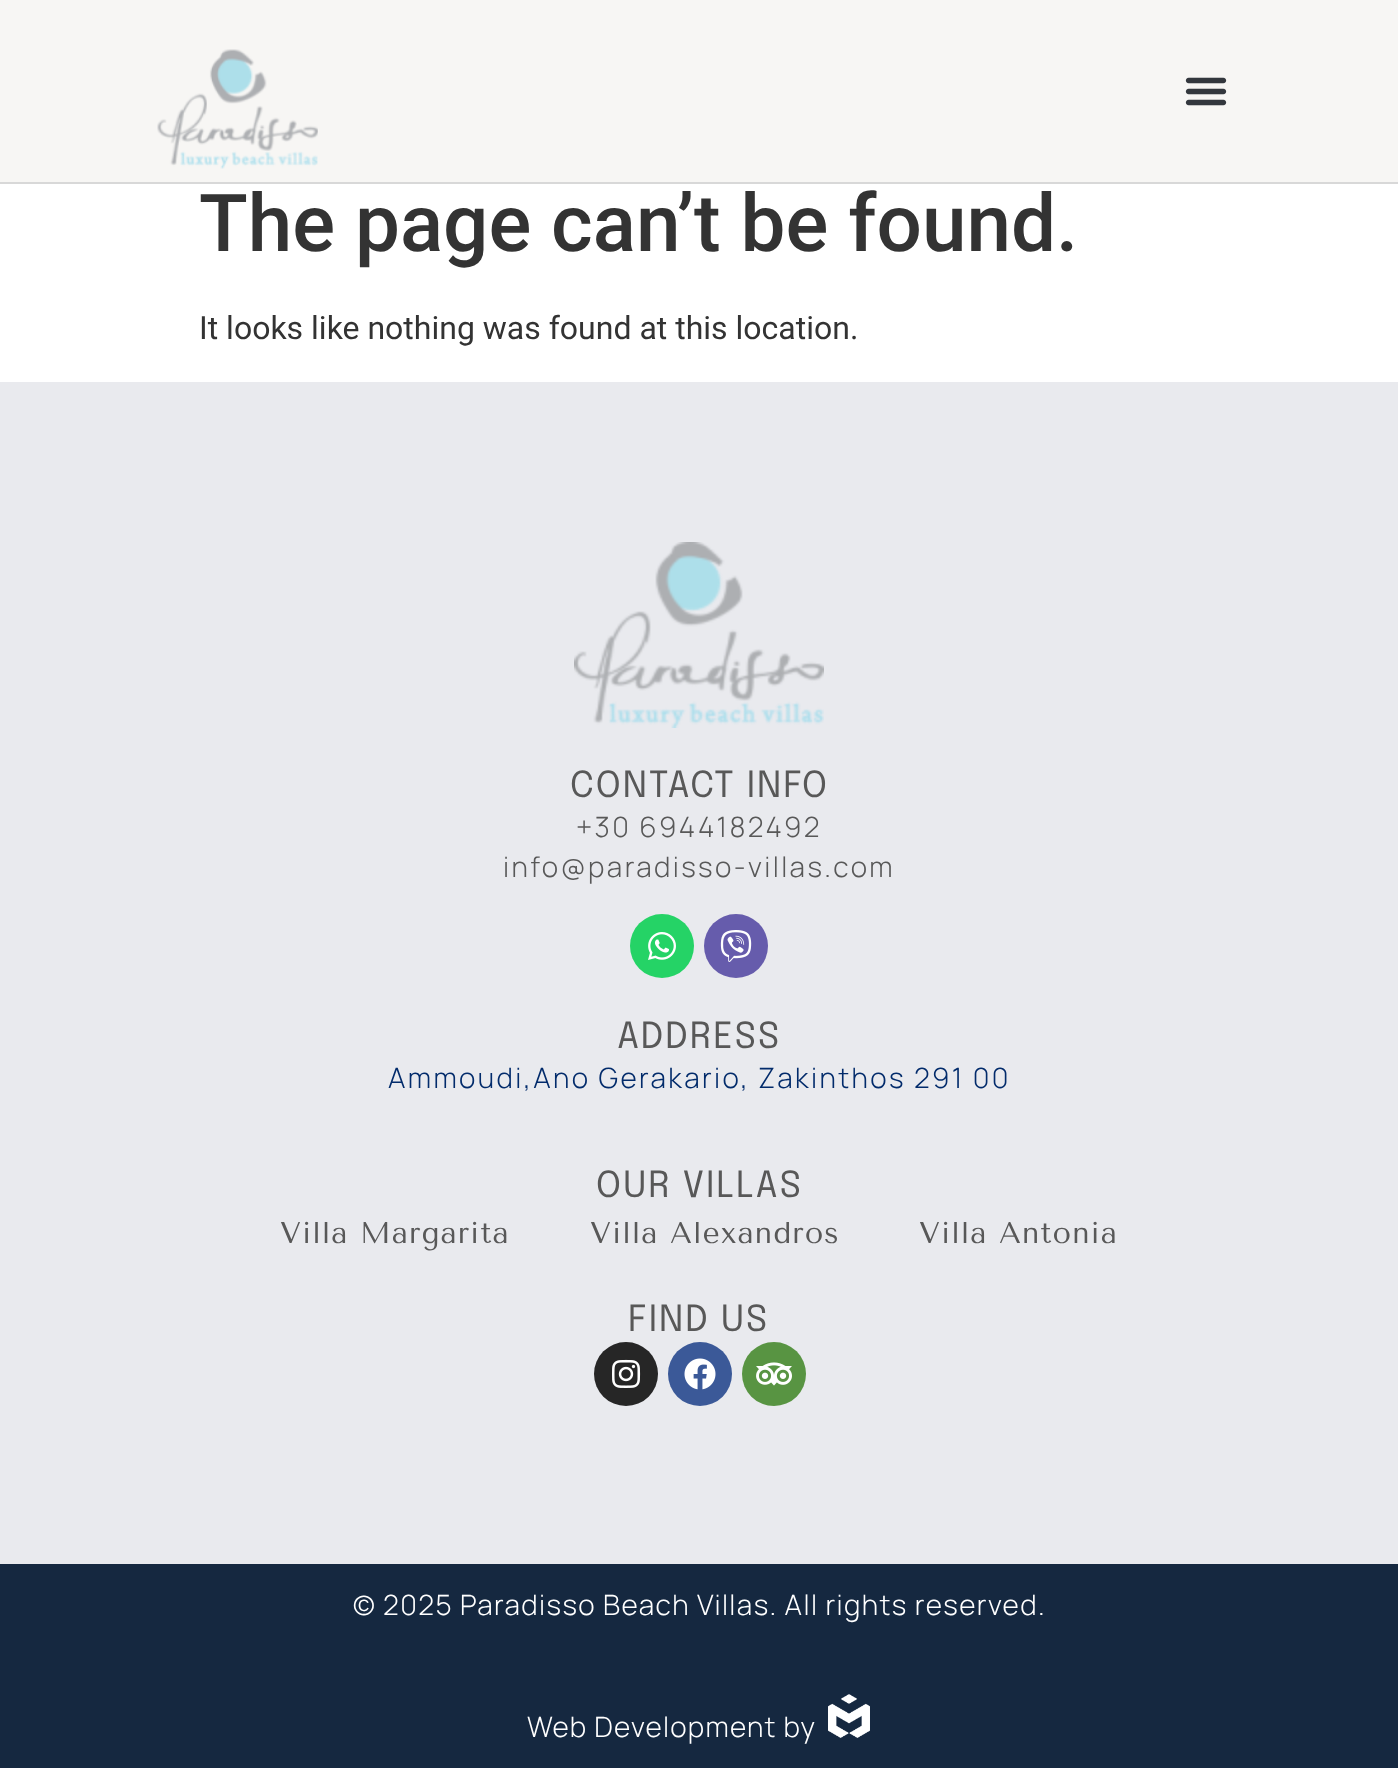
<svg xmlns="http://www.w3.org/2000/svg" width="1398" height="1768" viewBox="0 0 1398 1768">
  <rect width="100%" height="100%" fill="#fff"/>
  <path d="M0 0h1398v182H0z" fill="#f7f6f4"/>
  <path d="M0 182h1398v2H0z" fill="#d8d8d8"/>
  <image x="157" y="49" width="161" height="120" href="img/1.png"/>
  <image x="1185" y="77" width="42" height="29" href="img/2.png"/>
  <path d="M0 382h1398v1182H0z" fill="#e9eaee"/>
  <image x="574" y="542" width="250" height="186" href="img/3.png"/>
  <circle cx="662" cy="946" r="32" fill="#25d366"/>
  <image x="648" y="932" width="28" height="28" href="img/4.png"/>
  <circle cx="736" cy="946" r="32" fill="#665cac"/>
  <image x="720" y="930" width="32" height="32" href="img/5.png"/>
  <circle cx="626" cy="1374" r="32" fill="#262626"/>
  <image x="612" y="1359" width="29" height="29" href="img/6.png"/>
  <circle cx="700" cy="1374" r="32" fill="#3b5998"/>
  <image x="684" y="1358" width="32" height="32" href="img/7.png"/>
  <circle cx="774" cy="1374" r="32" fill="#589442"/>
  <image x="756" y="1362" width="36" height="24" href="img/8.png"/>
  <path d="M0 1564h1398v204H0z" fill="#152840"/>
  <image x="828" y="1694" width="42" height="44" href="img/9.png"/>
  <text x="199" y="251" font-family="Roboto" font-size="80" font-weight="500" fill="#333">The page can’t be found.</text>
  <text x="199" y="339" font-family="Roboto" font-size="32" fill="#333">It looks like nothing was found at this location.</text>
  <text x="570" y="797" font-family="Epilogue" font-size="36" letter-spacing="2" fill="#585858">CONTACT INFO</text>
  <g font-family="Manrope" font-size="28" font-weight="300" letter-spacing="2.4" fill="#585858">
    <text x="576" y="837">+30 6944182492</text>
    <text x="503" y="877">info@paradisso-villas.com</text>
  </g>
  <text x="617" y="1048" font-family="Epilogue" font-size="36" letter-spacing="2" fill="#585858">ADDRESS</text>
  <text x="388" y="1088" font-family="Manrope" font-size="28" font-weight="300" letter-spacing="2.4" fill="#022b6b">Ammoudi,Ano Gerakario, Zakinthos 291 00</text>
  <text x="596" y="1197" font-family="Epilogue" font-size="36" letter-spacing="2" fill="#585858">OUR VILLAS</text>
  <g font-family="Tenor Sans" font-size="30" letter-spacing="1" fill="#585858">
    <text x="280" y="1243">Villa Margarita</text>
    <text x="590" y="1243">Villa Alexandros</text>
    <text x="919" y="1243">Villa Antonia</text>
  </g>
  <text x="628" y="1331" font-family="Epilogue" font-size="36" letter-spacing="2" fill="#585858">FIND US</text>
  <text x="353" y="1615" font-family="Manrope" font-size="28" font-weight="300" letter-spacing="1.4" fill="#fff">© 2025 Paradisso Beach Villas. All rights reserved.</text>
  <text x="527" y="1737" font-family="Manrope" font-size="28" font-weight="300" letter-spacing="1.25" fill="#fff">Web Development by</text>
</svg>
